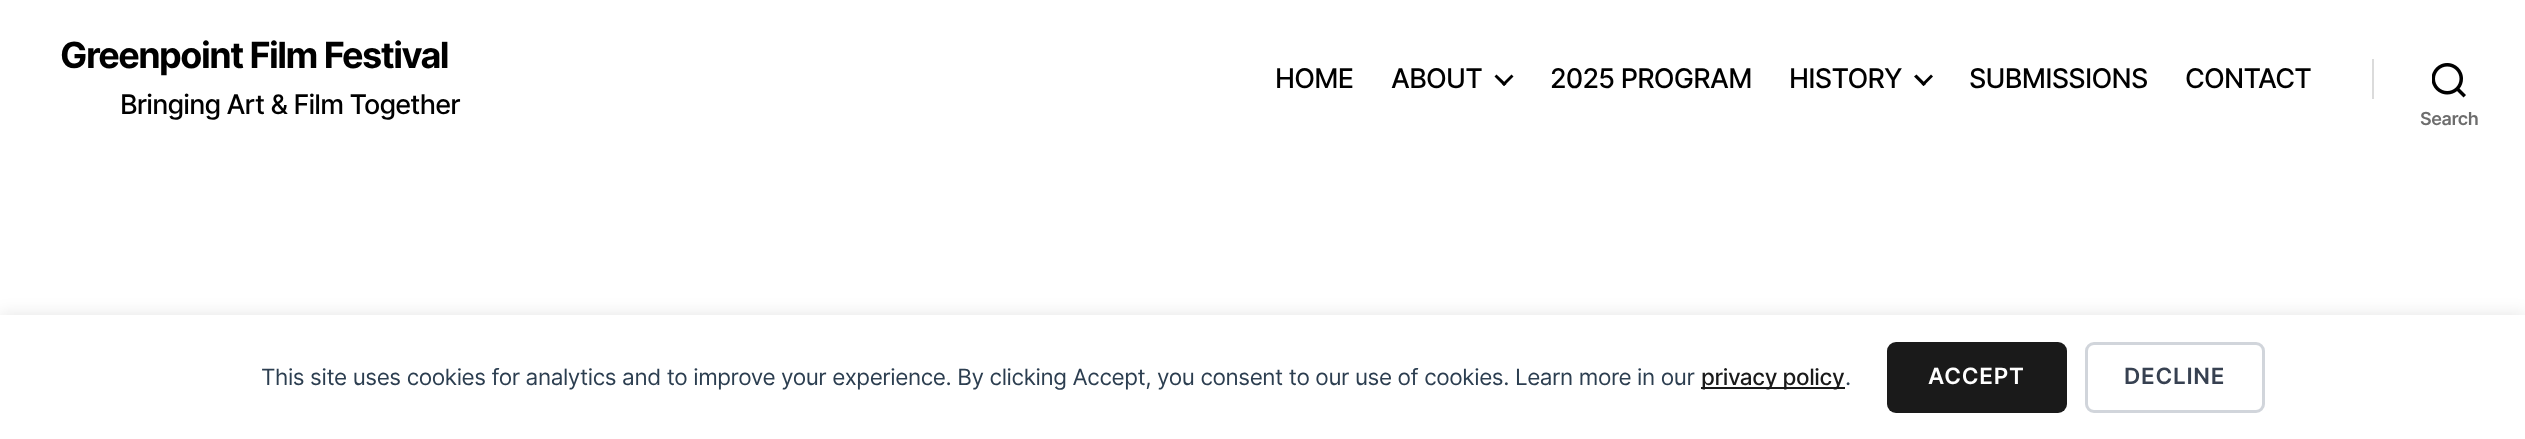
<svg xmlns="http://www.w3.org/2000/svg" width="2525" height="439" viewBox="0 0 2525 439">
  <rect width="100%" height="100%" fill="#fff"/>
  <path d="M1494.5 76.5L1496.5 74.5L1506.5 84L1504 86Z" fill="#000"/>
  <path d="M1502 84L1511.5 74.5L1513.5 76.5L1504 86Z" fill="#000"/>
  <path d="M1914 76.5L1916.5 74.5L1926 84L1923.5 86Z" fill="#000"/>
  <path d="M1921.5 84L1931 74.5L1933 76.5L1923.5 86Z" fill="#000"/>
  <path d="M2372 59h2v40H2372z" fill="#dbdbdb"/>
  <image x="2432" y="63" width="34" height="35" href="img/1.png"/>
  <path d="M0 312h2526v125H0z" fill="#00000014" filter="blur(7.5px)"/>
  <path d="M0 315h2525v124H0z" fill="#fff"/>
  <path d="M1701 387h144v2H1701z" fill="#1a1a1a"/>
  <rect x="1887" y="342" width="180" height="71" rx="9" fill="#1a1a1a"/>
  <rect x="2086.5" y="343.5" width="177" height="68" rx="7.5" fill="none" stroke="#d1d5db" stroke-width="3"/>
  <text x="60" y="68" font-family="Inter" font-size="36" font-weight="bold" letter-spacing="-1.5" fill="#000">Greenpoint Film Festival</text>
  <text x="120" y="114" font-family="Inter" font-size="27" font-weight="500" letter-spacing="-0.85" fill="#000">Bringing Art &amp; Film Together</text>
  <g font-family="Inter" font-size="27" font-weight="500" letter-spacing="-0.75" fill="#000">
    <text x="1275" y="88">HOME</text>
    <text x="1391" y="88">ABOUT</text>
    <text x="1550" y="88">2025 PROGRAM</text>
    <text x="1789" y="88">HISTORY</text>
    <text x="1969" y="88">SUBMISSIONS</text>
    <text x="2185" y="88">CONTACT</text>
  </g>
  <text x="2420" y="125" font-family="Inter" font-size="18" font-weight="600" letter-spacing="-0.41" fill="#6d6d6d">Search</text>
  <text x="261" y="385" font-family="Inter" font-size="22.5" letter-spacing="-0.41" fill="#2c3e50">This site uses cookies for analytics and to improve your experience. By clicking Accept, you consent to our use of cookies. Learn more in our</text>
  <text x="1701" y="385" font-family="Inter" font-size="22.5" font-weight="500" letter-spacing="-0.41" fill="#1a1a1a">privacy policy</text>
  <text x="1845" y="385" font-family="Inter" font-size="22.5" letter-spacing="-0.41" fill="#2c3e50">.</text>
  <text x="1928" y="384" font-family="Inter" font-size="22.5" font-weight="600" letter-spacing="0.75" fill="#fff">ACCEPT</text>
  <text x="2124" y="384" font-family="Inter" font-size="22.5" font-weight="600" letter-spacing="0.75" fill="#374151">DECLINE</text>
</svg>
